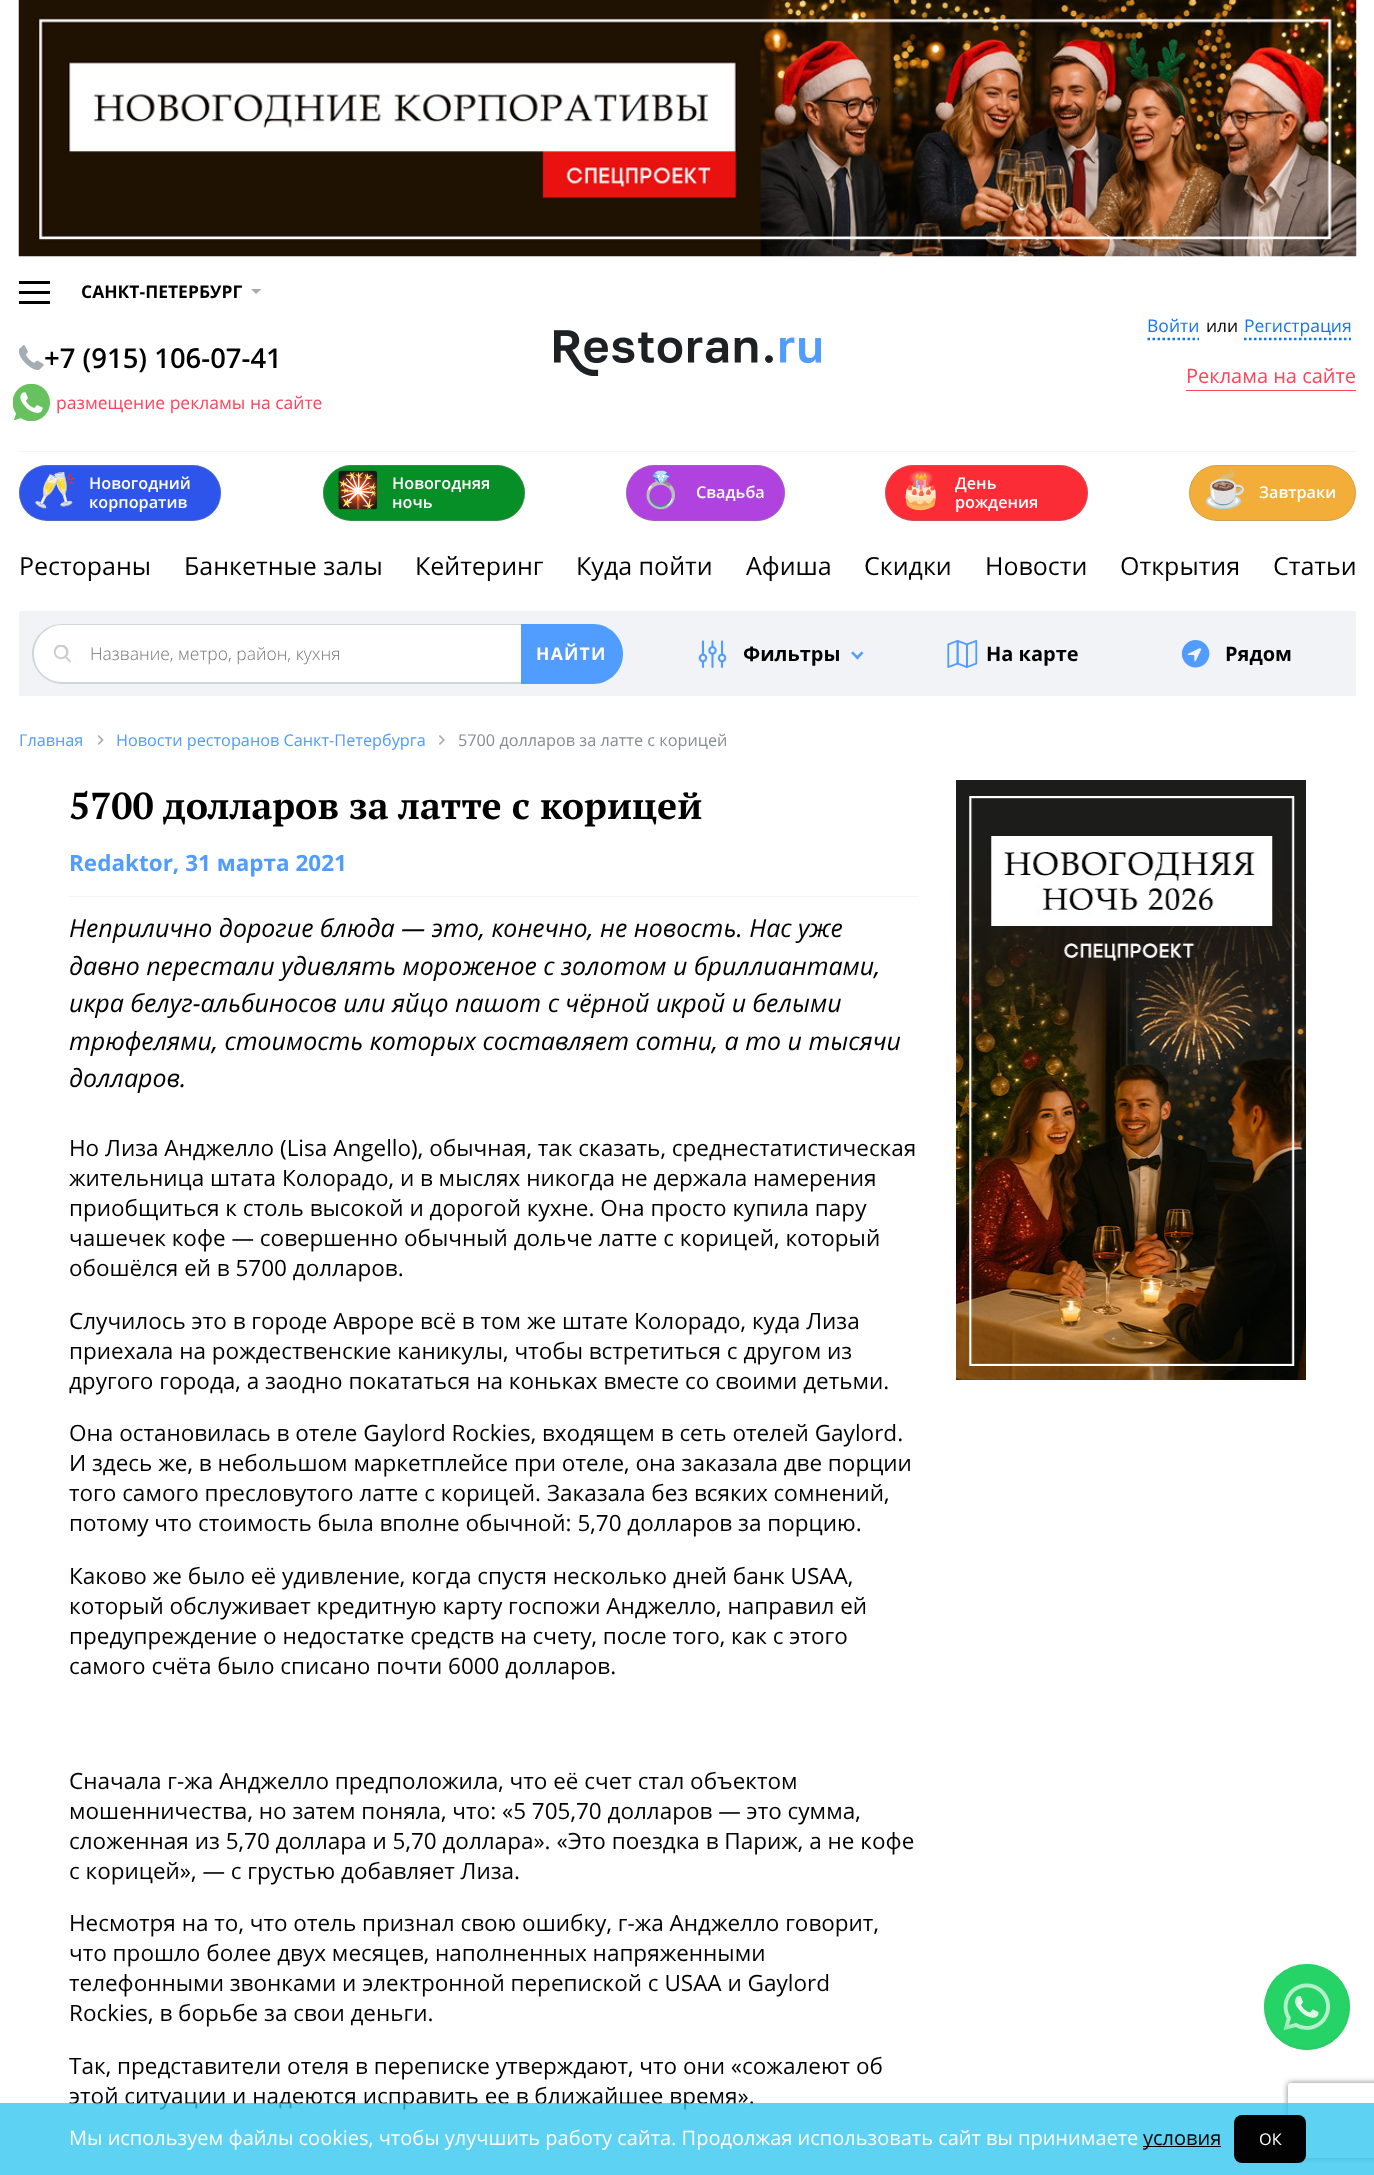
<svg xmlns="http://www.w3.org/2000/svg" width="1374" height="2175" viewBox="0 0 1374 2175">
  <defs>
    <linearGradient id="g1" gradientUnits="userSpaceOnUse" x1="1307" y1="1964" x2="1307" y2="2050"><stop offset="0" stop-color="#24d366"/><stop offset="1" stop-color="#3bb96a"/></linearGradient>
    <radialGradient id="g2" gradientUnits="userSpaceOnUse" cx="1307" cy="2007" r="61"><stop offset="0" stop-color="#25d366" stop-opacity="0"/><stop offset="1" stop-color="#25d366"/></radialGradient>
    <clipPath id="clip1"><path d="M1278 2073H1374V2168H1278ZM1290.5 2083H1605.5C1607 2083 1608 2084 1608 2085.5V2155.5C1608 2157 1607 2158 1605.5 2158H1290.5C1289 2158 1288 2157 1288 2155.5V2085.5C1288 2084 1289 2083 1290.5 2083Z" clip-rule="evenodd"/></clipPath>
  </defs>
  <rect width="100%" height="100%" fill="#fff"/>
  <image x="18" y="0" width="1339" height="257" href="img/1.png"/>
  <path d="M19 451h1337v1H19z" fill="#f2f3f7"/>
  <path d="M19 281h31v3H19z" fill="#000"/>
  <path d="M19 291h31v3H19z" fill="#000"/>
  <path d="M19 301h31v3H19z" fill="#000"/>
  <path d="M261.5 289L256 294L251 289" fill="#a4adb4" fill-rule="evenodd"/>
  <image x="19" y="345" width="25" height="25" href="img/2.png"/>
  <image x="13" y="384" width="37" height="37" href="img/3.png"/>
  <image x="554" y="330" width="267" height="46" href="img/4.png"/>
  <path d="M1147.5 339H1199" fill="none" stroke="#1475f2" stroke-width="2.5" stroke-dasharray="2.5 2.5"/>
  <path d="M1244 339H1351" fill="none" stroke="#1475f2" stroke-width="2.5" stroke-dasharray="2.5 2.5"/>
  <path d="M1186 390h170v1H1186z" fill="#ff435a"/>
  <rect x="19" y="465" width="202" height="56" rx="28" fill="#2d55eb"/>
  <rect x="19.5" y="465.5" width="201" height="55" rx="27.5" fill="none" stroke="#8e8c8c59"/>
  <rect x="323" y="465" width="202" height="56" rx="28" fill="#068e27"/>
  <rect x="323.5" y="465.5" width="201" height="55" rx="27.5" fill="none" stroke="#8e8c8c59"/>
  <rect x="626" y="465" width="159" height="56" rx="28" fill="#b043e0"/>
  <rect x="626.5" y="465.5" width="158" height="55" rx="27.5" fill="none" stroke="#8e8c8c59"/>
  <rect x="885" y="465" width="203" height="56" rx="28" fill="#fb2c36"/>
  <rect x="885.5" y="465.5" width="202" height="55" rx="27.5" fill="none" stroke="#8e8c8c59"/>
  <rect x="1189" y="465" width="167" height="56" rx="28" fill="#f3ad39"/>
  <rect x="1189.5" y="465.5" width="166" height="55" rx="27.5" fill="none" stroke="#8e8c8c59"/>
  <path d="M19 611h1337v85H19z" fill="#f2f3f7"/>
  <path d="M63 624H521V684H63C46.5 684 33 670.5 33 654C33 637.5 46.5 624 63 624Z" fill="#fff"/>
  <image x="54" y="645" width="17" height="18" href="img/5.png"/>
  <path d="M62 624H521V684H62C46 684 32 670 32 654C32 637 46 624 62 624ZM62 625H521V682H62C47 682 34 670 34 654C34 638 47 625 62 625Z" fill="#d1d6d9" fill-rule="evenodd"/>
  <path d="M521 624H593C609.5 624 623 637.5 623 654C623 670.5 609.5 684 593 684H521Z" fill="#509cff"/>
  <image x="698" y="640" width="29" height="28" href="img/6.png"/>
  <path d="M861.5 651.5L863.5 653L857.5 659.5L855.5 657.5Z" fill="#509cff"/>
  <path d="M853 651.5L859 657.5L857.5 659.5L851 653Z" fill="#509cff"/>
  <image x="947" y="640" width="31" height="28" href="img/7.png"/>
  <image x="1181" y="640" width="29" height="28" href="img/8.png"/>
  <image x="98" y="735" width="6" height="10" href="img/9.png"/>
  <image x="439" y="735" width="6" height="10" href="img/10.png"/>
  <path d="M69 896h850v1H69z" fill="#f3f4f6"/>
  <image x="956" y="780" width="350" height="600" href="img/11.png"/>
  <circle cx="1307" cy="2007" r="43" fill="url(#g1)"/>
  <circle cx="1307" cy="2007" r="41" fill="#25d366"/>
  <image x="1283" y="1983" width="48" height="48" href="img/12.png"/>
  <circle cx="1307" cy="2007" r="43" fill="url(#g2)"/>
  <g clip-path="url(#clip1)">
    <rect x="1288" y="2083" width="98" height="75" rx="2.5" fill="#808080" filter="blur(3px)"/>
  </g>
  <text x="81" y="298" font-family="Open Sans" font-size="17.5" font-weight="bold" fill="#000">САНКТ-ПЕТЕРБУРГ</text>
  <text x="44" y="368" font-family="Open Sans" font-size="27.5" font-weight="600" fill="#000">+7 (915) 106-07-41</text>
  <text x="56" y="409" font-family="Open Sans" font-size="17.5" fill="#ff435a">размещение рекламы на сайте</text>
  <text x="1147" y="332" font-family="Open Sans" font-size="17.5" fill="#1475f2">Войти</text>
  <text x="1206" y="332" font-family="Open Sans" font-size="17.5" fill="#000">или</text>
  <text x="1244" y="332" font-family="Open Sans" font-size="17.5" fill="#1475f2">Регистрация</text>
  <text x="1186" y="383" font-family="Open Sans" font-size="20" fill="#ff435a">Реклама на сайте</text>
  <text x="33" y="502" font-family="Noto Color Emoji" font-size="35" fill="#fff">🥂</text>
  <g font-family="Open Sans" font-size="16.25" font-weight="600" fill="#fff">
    <text x="89" y="489">Новогодний</text>
    <text x="89" y="508">корпоратив</text>
  </g>
  <text x="336" y="502" font-family="Noto Color Emoji" font-size="35" fill="#fff">🎇</text>
  <g font-family="Open Sans" font-size="16.25" font-weight="600" fill="#fff">
    <text x="392" y="489">Новогодняя</text>
    <text x="392" y="508">ночь</text>
  </g>
  <text x="639" y="502" font-family="Noto Color Emoji" font-size="35" fill="#fff">💍</text>
  <text x="696" y="498" font-family="Open Sans" font-size="16.25" font-weight="600" fill="#fff">Свадьба</text>
  <text x="899" y="502" font-family="Noto Color Emoji" font-size="35" fill="#fff">🎂</text>
  <g font-family="Open Sans" font-size="16.25" font-weight="600" fill="#fff">
    <text x="955" y="489">День</text>
    <text x="955" y="508">рождения</text>
  </g>
  <text x="1203" y="502" font-family="Noto Color Emoji" font-size="35" fill="#fff">☕️</text>
  <text x="1259" y="498" font-family="Open Sans" font-size="16.25" font-weight="600" fill="#fff">Завтраки</text>
  <g font-family="Open Sans" font-size="25" fill="#000">
    <text x="19" y="575">Рестораны</text>
    <text x="184" y="575">Банкетные залы</text>
    <text x="415" y="575">Кейтеринг</text>
    <text x="576" y="575">Куда пойти</text>
    <text x="746" y="575">Афиша</text>
    <text x="864" y="575">Скидки</text>
    <text x="985" y="575">Новости</text>
    <text x="1120" y="575">Открытия</text>
    <text x="1273" y="575">Статьи</text>
  </g>
  <text x="90" y="660" font-family="Open Sans" font-size="17.5" font-weight="300" fill="#757575">Название, метро, район, кухня</text>
  <text x="536" y="660" font-family="Open Sans" font-size="17.5" font-weight="bold" letter-spacing="1.25" fill="#fff">НАЙТИ</text>
  <g font-family="Open Sans" font-size="20" font-weight="bold" fill="#000">
    <text x="743" y="661">Фильтры</text>
    <text x="986" y="661">На карте</text>
    <text x="1225" y="661">Рядом</text>
  </g>
  <g font-family="Open Sans" font-size="16.25" fill="#509cff">
    <text x="19" y="746">Главная</text>
    <text x="116" y="746">Новости ресторанов Санкт-Петербурга</text>
  </g>
  <text x="458" y="746" font-family="Open Sans" font-size="16.25" fill="#858d94">5700 долларов за латте с корицей</text>
  <text x="69" y="819" font-family="PT Serif" font-size="37.5" font-weight="bold" fill="#000">5700 долларов за латте с корицей</text>
  <text x="69" y="871" font-family="Open Sans" font-size="22.5" font-weight="bold" fill="#509cff">Redaktor, 31 марта 2021</text>
  <g font-family="Open Sans" font-size="25" font-style="italic" fill="#000">
    <text x="69" y="937">Неприлично дорогие блюда — это, конечно, не новость. Нас уже</text>
    <text x="69" y="975">давно перестали удивлять мороженое с золотом и бриллиантами,</text>
    <text x="69" y="1012">икра белуг-альбиносов или яйцо пашот с чёрной икрой и белыми</text>
    <text x="69" y="1050">трюфелями, стоимость которых составляет сотни, а то и тысячи</text>
    <text x="69" y="1087">долларов.</text>
  </g>
  <g font-family="Open Sans" font-size="22.5" fill="#000">
    <text x="69" y="1156">Но Лиза Анджелло (Lisa Angello), обычная, так сказать, среднестатистическая</text>
    <text x="69" y="1186">жительница штата Колорадо, и в мыслях никогда не держала намерения</text>
    <text x="69" y="1216">приобщиться к столь высокой и дорогой кухне. Она просто купила пару</text>
    <text x="69" y="1246">чашечек кофе — совершенно обычный дольче латте с корицей, который</text>
    <text x="69" y="1276">обошёлся ей в 5700 долларов.</text>
    <text x="69" y="1329">Случилось это в городе Авроре всё в том же штате Колорадо, куда Лиза</text>
    <text x="69" y="1359">приехала на рождественские каникулы, чтобы встретиться с другом из</text>
    <text x="69" y="1389">другого города, а заодно покататься на коньках вместе со своими детьми.</text>
    <text x="69" y="1441">Она остановилась в отеле Gaylord Rockies, входящем в сеть отелей Gaylord.</text>
    <text x="69" y="1471">И здесь же, в небольшом маркетплейсе при отеле, она заказала две порции</text>
    <text x="69" y="1501">того самого пресловутого латте с корицей. Заказала без всяких сомнений,</text>
    <text x="69" y="1531">потому что стоимость была вполне обычной: 5,70 долларов за порцию.</text>
    <text x="69" y="1584">Каково же было её удивление, когда спустя несколько дней банк USAA,</text>
    <text x="69" y="1614">который обслуживает кредитную карту госпожи Анджелло, направил ей</text>
    <text x="69" y="1644">предупреждение о недостатке средств на счету, после того, как с этого</text>
    <text x="69" y="1674">самого счёта было списано почти 6000 долларов.</text>
    <text x="69" y="1789">Сначала г-жа Анджелло предположила, что её счет стал объектом</text>
    <text x="69" y="1819">мошенничества, но затем поняла, что: «5 705,70 долларов — это сумма,</text>
    <text x="69" y="1849">сложенная из 5,70 доллара и 5,70 доллара». «Это поездка в Париж, а не кофе</text>
    <text x="69" y="1879">с корицей», — с грустью добавляет Лиза.</text>
    <text x="69" y="1931">Несмотря на то, что отель признал свою ошибку, г-жа Анджелло говорит,</text>
    <text x="69" y="1961">что прошло более двух месяцев, наполненных напряженными</text>
    <text x="69" y="1991">телефонными звонками и электронной перепиской с USAA и Gaylord</text>
    <text x="69" y="2021">Rockies, в борьбе за свои деньги.</text>
    <text x="69" y="2074">Так, представители отеля в переписке утверждают, что они «сожалеют об</text>
    <text x="69" y="2104">этой ситуации и надеются исправить ее в ближайшее время».</text>
  </g>
  <path d="M0 2103h1374v72H0z" fill="#31c5f0c7"/>
  <text x="69" y="2145" font-family="Open Sans" font-size="20" fill="#fff">Мы используем файлы cookies, чтобы улучшить работу сайта. Продолжая использовать сайт вы принимаете</text>
  <path d="M1143 2146h78v1H1143z" fill="#000"/>
  <text x="1143" y="2145" font-family="Open Sans" font-size="20" fill="#000">условия</text>
  <rect x="1234" y="2115" width="72" height="48" rx="8" fill="#020202"/>
  <text x="1259" y="2145" font-family="Open Sans" font-size="16.25" fill="#fff">ОК</text>
</svg>
